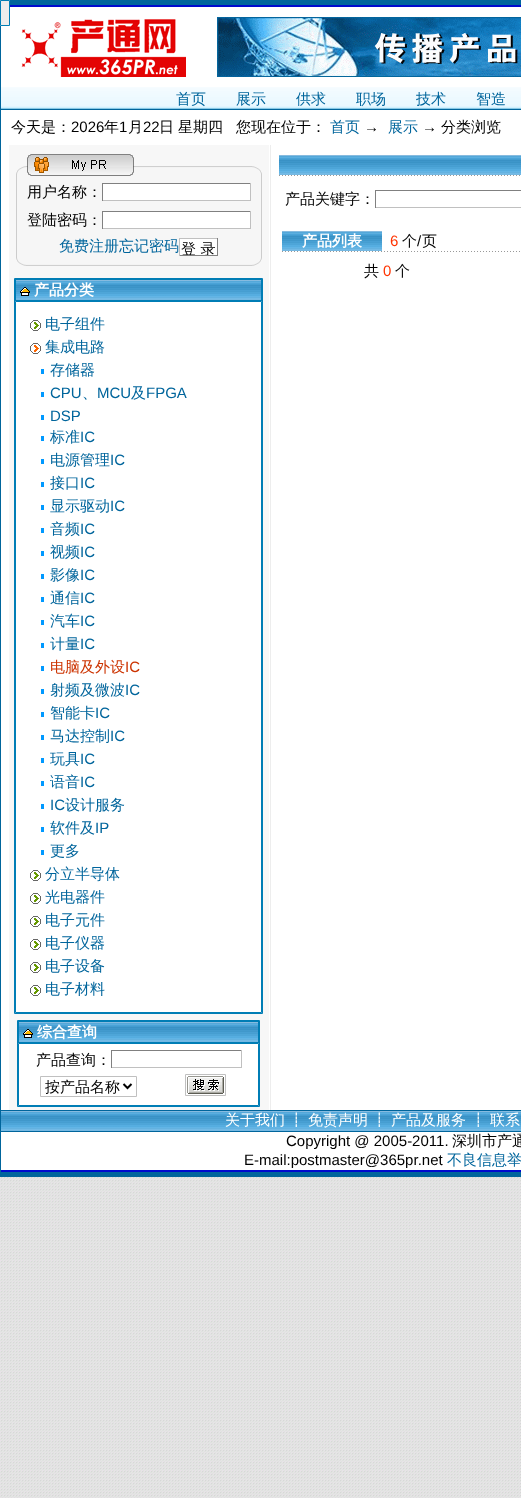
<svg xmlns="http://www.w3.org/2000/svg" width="521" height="1498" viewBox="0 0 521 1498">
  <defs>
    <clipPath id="clip1"><path d="M180 239h37v16H180z"/></clipPath>
  </defs>
  <rect width="100%" height="100%" fill="#fff"/>
  <image x="0" y="1177" width="521" height="321" href="img/1.png"/>
  <path d="M0.5 0.5h9v25H0.5z" fill="#ededed" stroke="#007db5"/>
  <path d="M0 26h1v1151H0z" fill="#00659c"/>
  <path d="M10 0h511v5H10z" fill="#00659c"/>
  <path d="M10 5h511v2H10z" fill="#000ace"/>
  <image x="21" y="19" width="165" height="58" href="img/2.png"/>
  <image x="217" y="17" width="304" height="60" href="img/3.png"/>
  <image x="1" y="87" width="520" height="22" href="img/4.png"/>
  <path d="M1 109h520v1H1z" fill="#00659c"/>
  <path d="M9 145h260v965H9z" fill="#f7f7f7"/>
  <image x="16" y="154" width="246" height="112" href="img/5.png"/>
  <path d="M103 184h147v16H103z" fill="#fff"/>
  <path d="M102 183h149v1H102z" fill="#808080"/>
  <path d="M250 183h1v18H250z" fill="#c0c0c0"/>
  <path d="M102 200h149v1H102z" fill="#c0c0c0"/>
  <path d="M102 183h1v18H102z" fill="#808080"/>
  <path d="M103 212h147v16H103z" fill="#fff"/>
  <path d="M102 211h149v1H102z" fill="#808080"/>
  <path d="M250 211h1v18H250z" fill="#c0c0c0"/>
  <path d="M102 228h149v1H102z" fill="#c0c0c0"/>
  <path d="M102 211h1v18H102z" fill="#808080"/>
  <path d="M180 239h37v16H180z" fill="#fff"/>
  <path d="M179 238h39v1H179z" fill="#c0c0c0"/>
  <path d="M217 238h1v18H217z" fill="#808080"/>
  <path d="M179 255h39v1H179z" fill="#808080"/>
  <path d="M179 238h1v18H179z" fill="#c0c0c0"/>
  <path d="M16 302h245v710H16z" fill="#fff"/>
  <path d="M14.5 278.5h248v735H14.5z" fill="none" stroke="#007db5"/>
  <path d="M15 279h247v22H15z" fill="#007db5"/>
  <image x="16" y="280" width="245" height="20" href="img/6.png"/>
  <image x="20" y="287" width="10" height="9" href="img/7.png"/>
  <path d="M15.5 301.5h246v711H15.5z" fill="none" stroke="#007db5"/>
  <image x="30" y="320" width="11" height="11" href="img/8.png"/>
  <image x="30" y="343" width="11" height="11" href="img/9.png"/>
  <path d="M41 369h3v5H41z" fill="#09f"/>
  <path d="M41 392h3v5H41z" fill="#09f"/>
  <path d="M41 415h3v5H41z" fill="#09f"/>
  <path d="M41 436h3v5H41z" fill="#09f"/>
  <path d="M41 459h3v5H41z" fill="#09f"/>
  <path d="M41 482h3v5H41z" fill="#09f"/>
  <path d="M41 505h3v5H41z" fill="#09f"/>
  <path d="M41 528h3v5H41z" fill="#09f"/>
  <path d="M41 551h3v5H41z" fill="#09f"/>
  <path d="M41 574h3v5H41z" fill="#09f"/>
  <path d="M41 597h3v5H41z" fill="#09f"/>
  <path d="M41 620h3v5H41z" fill="#09f"/>
  <path d="M41 643h3v5H41z" fill="#09f"/>
  <path d="M41 666h3v5H41z" fill="#09f"/>
  <path d="M41 689h3v5H41z" fill="#09f"/>
  <path d="M41 712h3v5H41z" fill="#09f"/>
  <path d="M41 735h3v5H41z" fill="#09f"/>
  <path d="M41 758h3v5H41z" fill="#09f"/>
  <path d="M41 781h3v5H41z" fill="#09f"/>
  <path d="M41 804h3v5H41z" fill="#09f"/>
  <path d="M41 827h3v5H41z" fill="#09f"/>
  <path d="M41 850h3v5H41z" fill="#09f"/>
  <image x="30" y="870" width="11" height="11" href="img/8.png"/>
  <image x="30" y="893" width="11" height="11" href="img/8.png"/>
  <image x="30" y="916" width="11" height="11" href="img/8.png"/>
  <image x="30" y="939" width="11" height="11" href="img/8.png"/>
  <image x="30" y="962" width="11" height="11" href="img/8.png"/>
  <image x="30" y="985" width="11" height="11" href="img/8.png"/>
  <path d="M19 1044h239v61H19z" fill="#fff"/>
  <path d="M17.5 1020.5h242v86H17.5z" fill="none" stroke="#007db5"/>
  <path d="M18 1021h241v22H18z" fill="#007db5"/>
  <image x="19" y="1022" width="239" height="20" href="img/10.png"/>
  <image x="23" y="1029" width="10" height="9" href="img/7.png"/>
  <path d="M18.5 1043.5h240v62H18.5z" fill="none" stroke="#007db5"/>
  <path d="M111 1050h131v1H111z" fill="#808080"/>
  <path d="M241 1050h1v18H241z" fill="#c0c0c0"/>
  <path d="M111 1067h131v1H111z" fill="#c0c0c0"/>
  <path d="M111 1050h1v18H111z" fill="#808080"/>
  <path d="M40.5 1076.5h96v20H40.5z" fill="none" stroke="#c0c0c0"/>
  <path d="M123.5 1084L127.5 1088L131.5 1084" fill="none" stroke="#000" stroke-width="2"/>
  <path d="M185.5 1074.5h40v21H185.5z" fill="none" stroke="#c0c0c0"/>
  <image x="187" y="1076" width="37" height="18" href="img/11.png"/>
  <path d="M270 145h1v965H270z" fill="#ededed"/>
  <image x="279" y="155" width="242" height="20" href="img/12.png"/>
  <image x="279" y="175" width="241" height="1" href="img/13.png"/>
  <path d="M375 190h146v1H375z" fill="#808080"/>
  <path d="M375 207h146v1H375z" fill="#c0c0c0"/>
  <path d="M375 190h1v18H375z" fill="#808080"/>
  <image x="282" y="231" width="100" height="20" href="img/14.png"/>
  <image x="282" y="251" width="238" height="1" href="img/15.png"/>
  <path d="M1 1110h520v1H1z" fill="#00659c"/>
  <image x="1" y="1111" width="520" height="20" href="img/16.png"/>
  <path d="M1 1131h520v1H1z" fill="#00659c"/>
  <path d="M1 1170h520v2H1z" fill="#000ace"/>
  <path d="M1 1172h520v5H1z" fill="#00659c"/>
  <g font-family="WenQuanYi Zen Hei" font-size="15" font-weight="500" fill="#00659c">
    <text x="176" y="104">首页</text>
    <text x="236" y="104">展示</text>
    <text x="296" y="104">供求</text>
    <text x="356" y="104">职场</text>
    <text x="416" y="104">技术</text>
    <text x="476" y="104">智造</text>
  </g>
  <text x="11" y="132" font-family="WenQuanYi Zen Hei" font-size="15" font-weight="500" fill="#000">今天是：</text>
  <text x="71" y="132" font-family="Liberation Sans" font-size="15" fill="#000">2026</text>
  <text x="104" y="132" font-family="WenQuanYi Zen Hei" font-size="15" font-weight="500" fill="#000">年</text>
  <text x="119" y="132" font-family="Liberation Sans" font-size="15" fill="#000">1</text>
  <text x="128" y="132" font-family="WenQuanYi Zen Hei" font-size="15" font-weight="500" fill="#000">月</text>
  <text x="143" y="132" font-family="Liberation Sans" font-size="15" fill="#000">22</text>
  <g font-family="WenQuanYi Zen Hei" font-size="15" font-weight="500" fill="#000">
    <text x="159" y="132">日</text>
    <text x="178" y="132">星期四</text>
    <text x="236" y="132">您现在位于：</text>
  </g>
  <text x="330" y="132" font-family="WenQuanYi Zen Hei" font-size="15" font-weight="500" fill="#00659c">首页</text>
  <text x="364" y="132" font-family="Liberation Sans" font-size="15" fill="#000">→</text>
  <text x="388" y="132" font-family="WenQuanYi Zen Hei" font-size="15" font-weight="500" fill="#00659c">展示</text>
  <text x="422" y="132" font-family="Liberation Sans" font-size="15" fill="#000">→</text>
  <g font-family="WenQuanYi Zen Hei" font-size="15" font-weight="500" fill="#000">
    <text x="441" y="132">分类浏览</text>
    <text x="27" y="197">用户名称：</text>
    <text x="27" y="225">登陆密码：</text>
  </g>
  <text x="59" y="251" font-family="WenQuanYi Zen Hei" font-size="15" font-weight="500" fill="#00659c">免费注册忘记密码</text>
  <g clip-path="url(#clip1)">
    <text x="181" y="254" font-family="WenQuanYi Zen Hei" font-size="15" font-weight="500" fill="#000">登 录</text>
  </g>
  <text x="34" y="295" font-family="WenQuanYi Zen Hei" font-size="15" font-weight="bold" fill="#fff">产品分类</text>
  <g font-family="WenQuanYi Zen Hei" font-size="15" font-weight="500" fill="#00659c">
    <text x="45" y="329">电子组件</text>
    <text x="45" y="352">集成电路</text>
    <text x="50" y="375">存储器</text>
  </g>
  <g font-family="Liberation Sans" font-size="15" fill="#00659c">
    <text x="50" y="398">CPU</text>
    <text x="97" y="398">MCU</text>
  </g>
  <text x="131" y="398" font-family="WenQuanYi Zen Hei" font-size="15" font-weight="500" fill="#00659c">及</text>
  <text x="146" y="398" font-family="Liberation Sans" font-size="15" fill="#00659c">FPGA</text>
  <text x="82" y="398" font-family="WenQuanYi Zen Hei" font-size="15" font-weight="500" fill="#00659c">、</text>
  <text x="50" y="421" font-family="Liberation Sans" font-size="15" fill="#00659c">DSP</text>
  <text x="50" y="442" font-family="WenQuanYi Zen Hei" font-size="15" font-weight="500" fill="#00659c">标准</text>
  <text x="80" y="442" font-family="Liberation Sans" font-size="15" fill="#00659c">IC</text>
  <text x="50" y="465" font-family="WenQuanYi Zen Hei" font-size="15" font-weight="500" fill="#00659c">电源管理</text>
  <text x="110" y="465" font-family="Liberation Sans" font-size="15" fill="#00659c">IC</text>
  <text x="50" y="488" font-family="WenQuanYi Zen Hei" font-size="15" font-weight="500" fill="#00659c">接口</text>
  <text x="80" y="488" font-family="Liberation Sans" font-size="15" fill="#00659c">IC</text>
  <text x="50" y="511" font-family="WenQuanYi Zen Hei" font-size="15" font-weight="500" fill="#00659c">显示驱动</text>
  <text x="110" y="511" font-family="Liberation Sans" font-size="15" fill="#00659c">IC</text>
  <text x="50" y="534" font-family="WenQuanYi Zen Hei" font-size="15" font-weight="500" fill="#00659c">音频</text>
  <text x="80" y="534" font-family="Liberation Sans" font-size="15" fill="#00659c">IC</text>
  <text x="50" y="557" font-family="WenQuanYi Zen Hei" font-size="15" font-weight="500" fill="#00659c">视频</text>
  <text x="80" y="557" font-family="Liberation Sans" font-size="15" fill="#00659c">IC</text>
  <text x="50" y="580" font-family="WenQuanYi Zen Hei" font-size="15" font-weight="500" fill="#00659c">影像</text>
  <text x="80" y="580" font-family="Liberation Sans" font-size="15" fill="#00659c">IC</text>
  <text x="50" y="603" font-family="WenQuanYi Zen Hei" font-size="15" font-weight="500" fill="#00659c">通信</text>
  <text x="80" y="603" font-family="Liberation Sans" font-size="15" fill="#00659c">IC</text>
  <text x="50" y="626" font-family="WenQuanYi Zen Hei" font-size="15" font-weight="500" fill="#00659c">汽车</text>
  <text x="80" y="626" font-family="Liberation Sans" font-size="15" fill="#00659c">IC</text>
  <text x="50" y="649" font-family="WenQuanYi Zen Hei" font-size="15" font-weight="500" fill="#00659c">计量</text>
  <text x="80" y="649" font-family="Liberation Sans" font-size="15" fill="#00659c">IC</text>
  <text x="50" y="672" font-family="WenQuanYi Zen Hei" font-size="15" font-weight="500" fill="#c30">电脑及外设</text>
  <text x="125" y="672" font-family="Liberation Sans" font-size="15" fill="#c30">IC</text>
  <text x="50" y="695" font-family="WenQuanYi Zen Hei" font-size="15" font-weight="500" fill="#00659c">射频及微波</text>
  <text x="125" y="695" font-family="Liberation Sans" font-size="15" fill="#00659c">IC</text>
  <text x="50" y="718" font-family="WenQuanYi Zen Hei" font-size="15" font-weight="500" fill="#00659c">智能卡</text>
  <text x="95" y="718" font-family="Liberation Sans" font-size="15" fill="#00659c">IC</text>
  <text x="50" y="741" font-family="WenQuanYi Zen Hei" font-size="15" font-weight="500" fill="#00659c">马达控制</text>
  <text x="110" y="741" font-family="Liberation Sans" font-size="15" fill="#00659c">IC</text>
  <text x="50" y="764" font-family="WenQuanYi Zen Hei" font-size="15" font-weight="500" fill="#00659c">玩具</text>
  <text x="80" y="764" font-family="Liberation Sans" font-size="15" fill="#00659c">IC</text>
  <text x="50" y="787" font-family="WenQuanYi Zen Hei" font-size="15" font-weight="500" fill="#00659c">语音</text>
  <g font-family="Liberation Sans" font-size="15" fill="#00659c">
    <text x="80" y="787">IC</text>
    <text x="50" y="810">IC</text>
  </g>
  <g font-family="WenQuanYi Zen Hei" font-size="15" font-weight="500" fill="#00659c">
    <text x="65" y="810">设计服务</text>
    <text x="50" y="833">软件及</text>
  </g>
  <text x="95" y="833" font-family="Liberation Sans" font-size="15" fill="#00659c">IP</text>
  <g font-family="WenQuanYi Zen Hei" font-size="15" font-weight="500" fill="#00659c">
    <text x="50" y="856">更多</text>
    <text x="45" y="879">分立半导体</text>
    <text x="45" y="902">光电器件</text>
    <text x="45" y="925">电子元件</text>
    <text x="45" y="948">电子仪器</text>
    <text x="45" y="971">电子设备</text>
    <text x="45" y="994">电子材料</text>
  </g>
  <text x="37" y="1037" font-family="WenQuanYi Zen Hei" font-size="15" font-weight="bold" fill="#fff">综合查询</text>
  <g font-family="WenQuanYi Zen Hei" font-size="15" font-weight="500" fill="#000">
    <text x="36" y="1065">产品查询：</text>
    <text x="45" y="1092">按产品名称</text>
    <text x="285" y="204">产品关键字：</text>
  </g>
  <text x="302" y="246" font-family="WenQuanYi Zen Hei" font-size="15" font-weight="bold" fill="#fff">产品列表</text>
  <text x="390" y="246" font-family="Liberation Sans" font-size="15" fill="#f30">6</text>
  <text x="402" y="246" font-family="WenQuanYi Zen Hei" font-size="15" font-weight="500" fill="#000">个</text>
  <text x="417" y="246" font-family="Liberation Sans" font-size="15" fill="#000">/</text>
  <g font-family="WenQuanYi Zen Hei" font-size="15" font-weight="500" fill="#000">
    <text x="422" y="246">页</text>
    <text x="364" y="276">共</text>
  </g>
  <text x="383" y="276" font-family="Liberation Sans" font-size="15" fill="#f30">0</text>
  <text x="395" y="276" font-family="WenQuanYi Zen Hei" font-size="15" font-weight="500" fill="#000">个</text>
  <g font-family="WenQuanYi Zen Hei" font-size="15" font-weight="500" fill="#fff">
    <text x="225" y="1125">关于我们</text>
    <text x="289" y="1125">┋</text>
    <text x="308" y="1125">免责声明</text>
    <text x="372" y="1125">┋</text>
    <text x="391" y="1125">产品及服务</text>
    <text x="471" y="1125">┋</text>
    <text x="490" y="1125">联系</text>
  </g>
  <text x="286" y="1146" font-family="Liberation Sans" font-size="15" fill="#000">Copyright @ 2005-2011.</text>
  <text x="452" y="1146" font-family="WenQuanYi Zen Hei" font-size="15" font-weight="500" fill="#000">深圳市产通</text>
  <text x="244" y="1165" font-family="Liberation Sans" font-size="15" fill="#000">E-mail:postmaster@365pr.net</text>
  <text x="447" y="1165" font-family="WenQuanYi Zen Hei" font-size="15" font-weight="500" fill="#00659c">不良信息举</text>
</svg>
